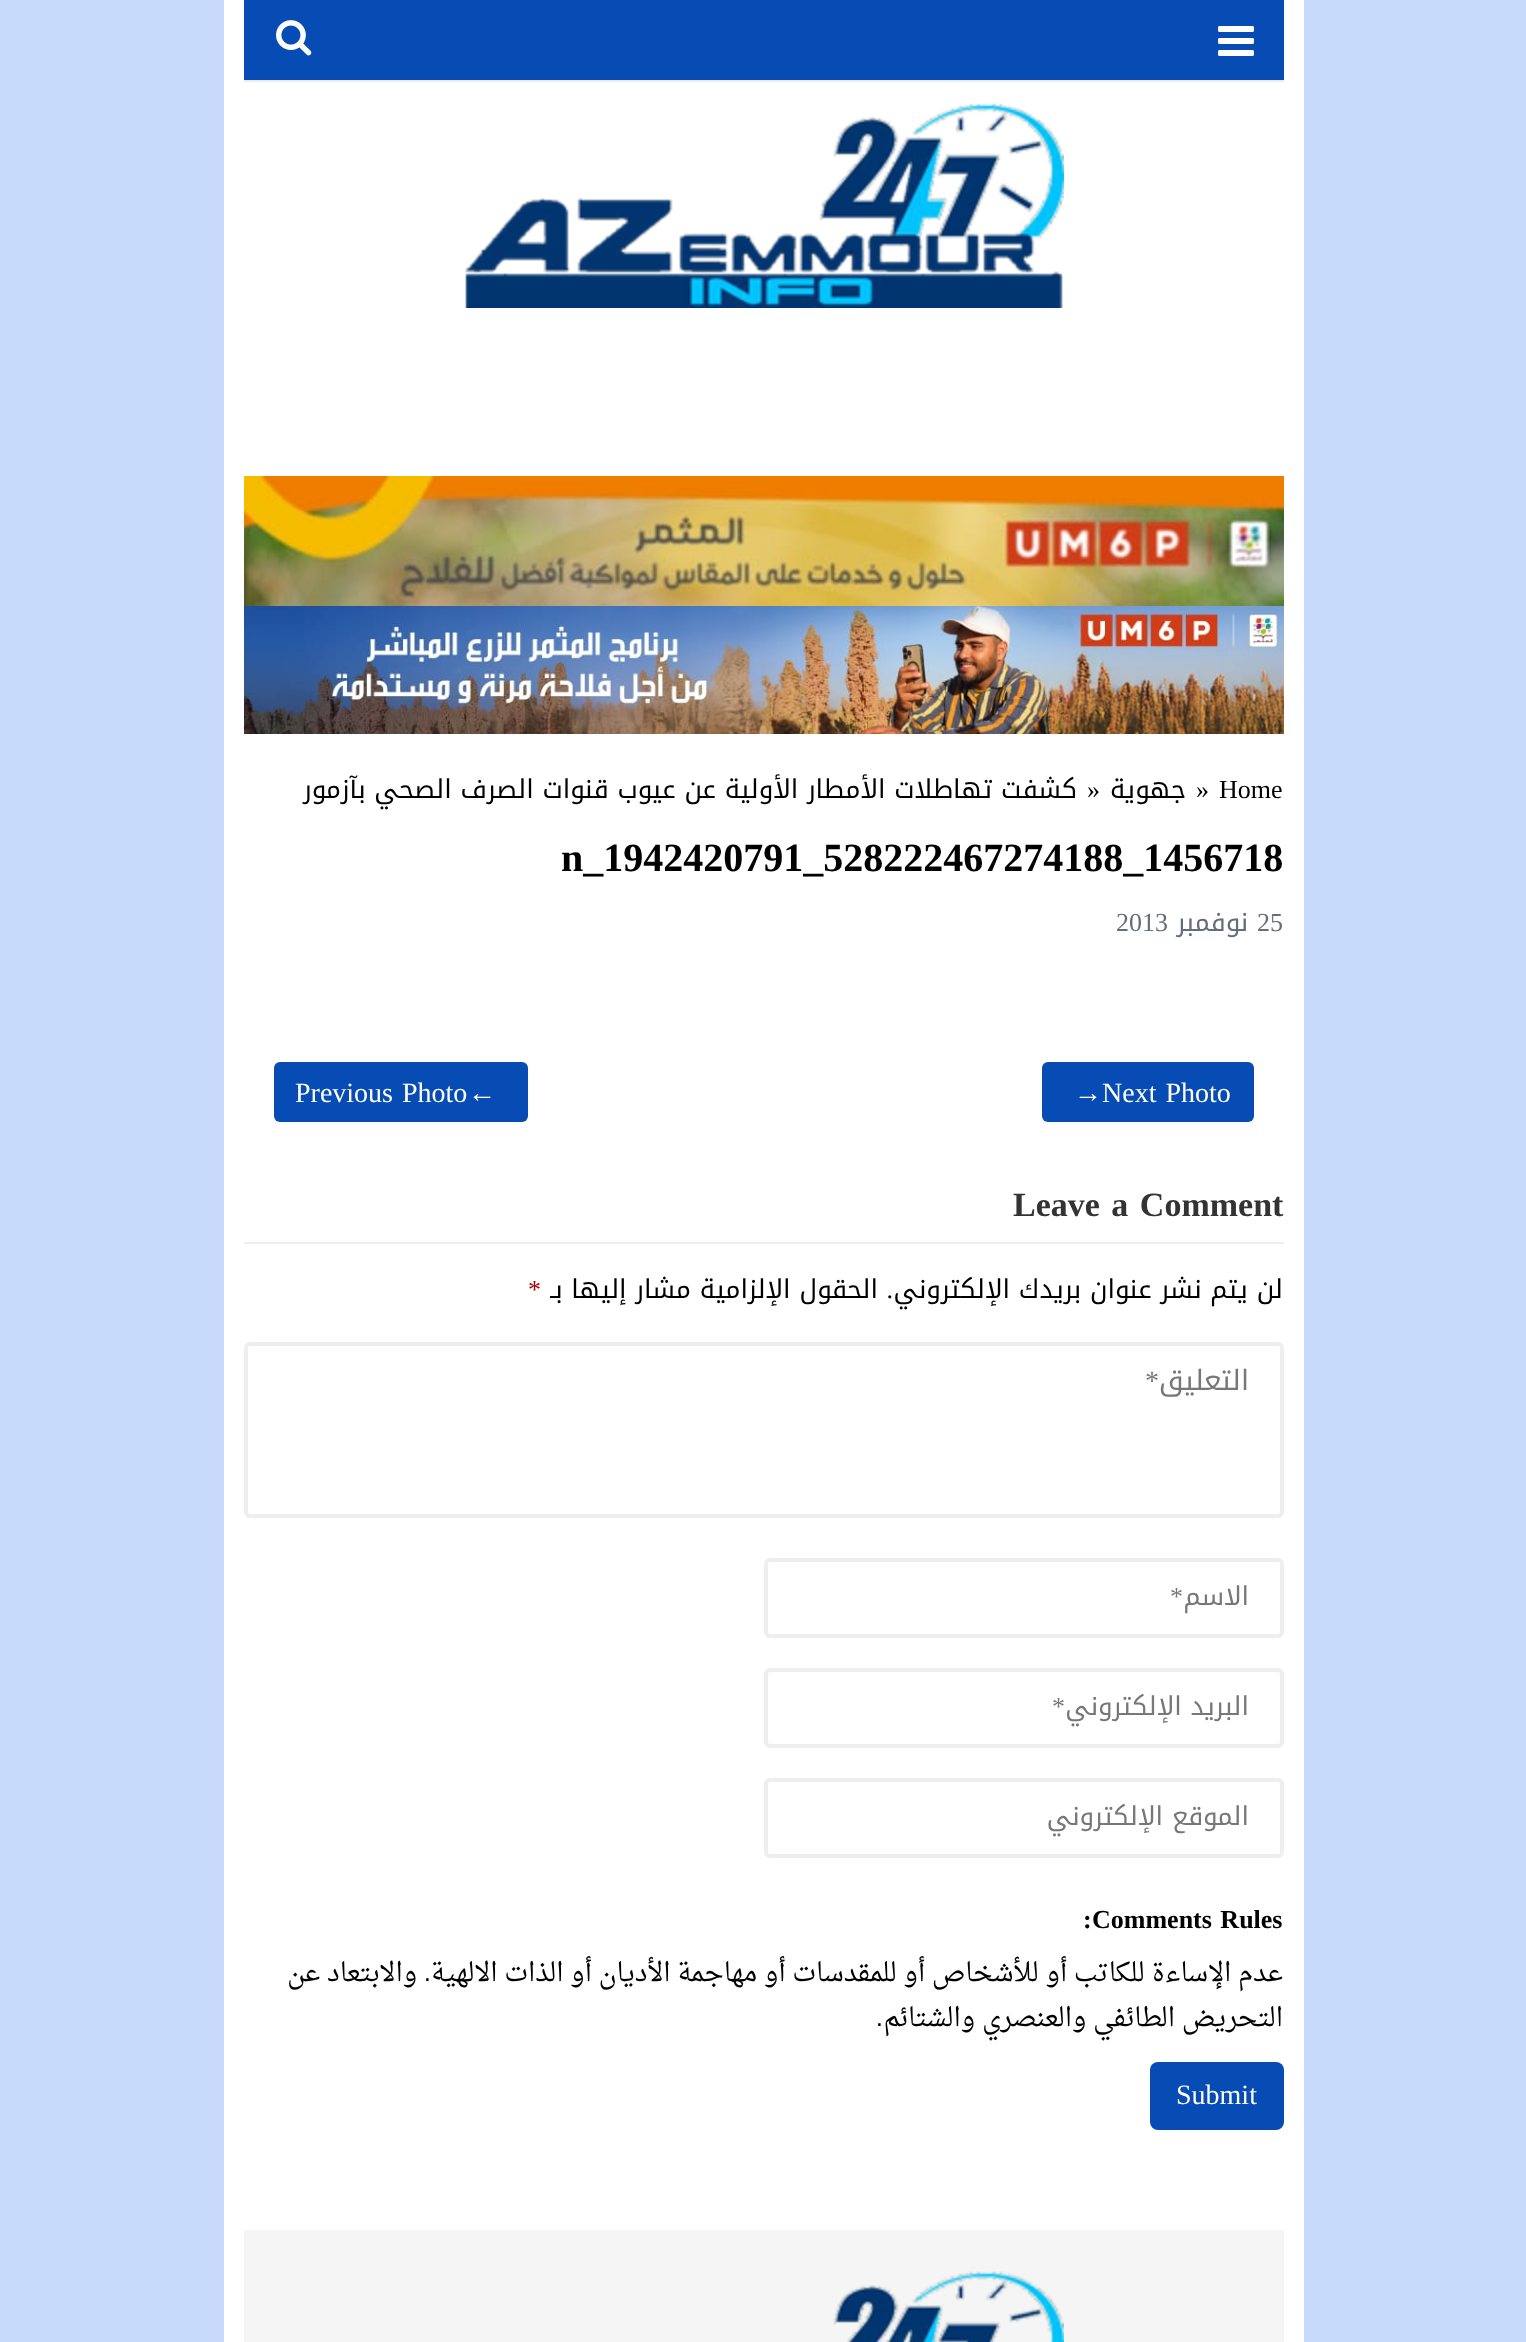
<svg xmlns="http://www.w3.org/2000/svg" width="1526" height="2342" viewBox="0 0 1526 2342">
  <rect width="100%" height="100%" fill="#c7dafc"/>
  <path d="M224 0h1080v2342H224z" fill="#fff"/>
  <path d="M244 0h1040v80H244z" fill="#074cb4"/>
  <path d="M244 80h1040v2H244z" fill="#e9edf0"/>
  <image x="1218" y="26" width="36" height="30" href="img/1.png"/>
  <image x="276" y="20" width="36" height="36" href="img/2.png"/>
  <image x="465" y="103" width="599" height="205" href="img/3.png"/>
  <image x="244" y="476" width="1040" height="130" href="img/4.png"/>
  <image x="244" y="606" width="1040" height="128" href="img/5.png"/>
  <rect x="1042" y="1062" width="212" height="60" rx="6" fill="#074cb4"/>
  <rect x="274" y="1062" width="254" height="60" rx="6" fill="#074cb4"/>
  <path d="M244 1242h1040v2H244z" fill="#eee"/>
  <rect x="246" y="1344" width="1036" height="172" rx="4" fill="none" stroke="#eee" stroke-width="4"/>
  <rect x="766" y="1560" width="516" height="76" rx="4" fill="none" stroke="#eee" stroke-width="4"/>
  <rect x="766" y="1670" width="516" height="76" rx="4" fill="none" stroke="#eee" stroke-width="4"/>
  <rect x="766" y="1780" width="516" height="76" rx="4" fill="none" stroke="#eee" stroke-width="4"/>
  <rect x="1150" y="2062" width="134" height="68" rx="8" fill="#074cb4"/>
  <path d="M244 2230h1040v112H244z" fill="#f5f5f5"/>
  <image x="833" y="2271" width="231" height="71" href="img/6.png"/>
  <g font-family="Liberation Serif" font-size="26" fill="#000">
    <text x="1219" y="798">Home</text>
    <text x="1196" y="798">»</text>
  </g>
  <text x="1186" y="798" font-family="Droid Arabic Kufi" font-size="26" direction="rtl" fill="#000">جهوية</text>
  <text x="1087" y="798" font-family="Liberation Serif" font-size="26" fill="#000">»</text>
  <text x="1077" y="798" font-family="Droid Arabic Kufi" font-size="26" direction="rtl" fill="#000">كشفت تهاطلات الأمطار الأولية عن عيوب قنوات الصرف الصحي بآزمور</text>
  <text x="561" y="871" font-family="Liberation Serif" font-size="40" font-weight="bold" fill="#000">n_1942420791_528222467274188_1456718</text>
  <text x="1257" y="931" font-family="Liberation Serif" font-size="26" fill="#656c7a">25</text>
  <text x="1248" y="931" font-family="Droid Arabic Kufi" font-size="26" direction="rtl" fill="#656c7a">نوفمبر</text>
  <text x="1116" y="931" font-family="Liberation Serif" font-size="26" fill="#656c7a">2013</text>
  <g font-family="Liberation Serif" font-size="28" fill="#fff">
    <text x="1102" y="1102" word-spacing="2">Next Photo</text>
    <text x="1074" y="1102">→</text>
    <text x="468" y="1102">←</text>
    <text x="295" y="1102" word-spacing="2">Previous Photo</text>
  </g>
  <text x="1013" y="1216" word-spacing="3" font-family="Liberation Serif" font-size="34" font-weight="bold" fill="#333">Leave a Comment</text>
  <g font-family="Droid Arabic Kufi" font-size="26" direction="rtl" fill="#000">
    <text x="1283" y="1298">لن يتم نشر عنوان بريدك الإلكتروني</text>
    <text x="878" y="1298">الحقول الإلزامية مشار إليها بـ</text>
  </g>
  <text x="528" y="1298" font-family="Liberation Serif" font-size="26" fill="#a80000">*</text>
  <text x="893" y="1298" font-family="Liberation Serif" font-size="26" direction="rtl" fill="#000">.</text>
  <text x="1249" y="1390" font-family="Droid Arabic Kufi" font-size="28" direction="rtl" fill="#777">التعليق</text>
  <text x="1159" y="1390" font-family="Liberation Serif" font-size="28" direction="rtl" fill="#777">*</text>
  <text x="1249" y="1605" font-family="Droid Arabic Kufi" font-size="26" direction="rtl" fill="#777">الاسم</text>
  <text x="1183" y="1605" font-family="Liberation Serif" font-size="26" direction="rtl" fill="#777">*</text>
  <text x="1249" y="1715" font-family="Droid Arabic Kufi" font-size="26" direction="rtl" fill="#777">البريد الإلكتروني</text>
  <text x="1065" y="1715" font-family="Liberation Serif" font-size="26" direction="rtl" fill="#777">*</text>
  <text x="1249" y="1825" font-family="Droid Arabic Kufi" font-size="26" direction="rtl" fill="#777">الموقع الإلكتروني</text>
  <g font-family="Liberation Serif" font-size="26" font-weight="bold" fill="#000">
    <text x="1092" y="1928" word-spacing="2">Comments Rules</text>
    <text x="1083" y="1928">:</text>
  </g>
  <text x="1283" y="1981" font-family="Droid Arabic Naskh" font-size="26" direction="rtl" fill="#000">عدم الإساءة للكاتب أو للأشخاص أو للمقدسات أو مهاجمة الأديان أو الذات الالهية</text>
  <text x="431" y="1981" font-family="Liberation Sans" font-size="26" direction="rtl" fill="#000">.</text>
  <g font-family="Droid Arabic Naskh" font-size="26" direction="rtl" fill="#000">
    <text x="417" y="1981">والابتعاد عن</text>
    <text x="1283" y="2026">التحريض الطائفي والعنصري والشتائم</text>
  </g>
  <text x="883" y="2026" font-family="Liberation Sans" font-size="26" direction="rtl" fill="#000">.</text>
  <text x="1176" y="2104" font-family="Liberation Serif" font-size="28" fill="#fff">Submit</text>
</svg>
